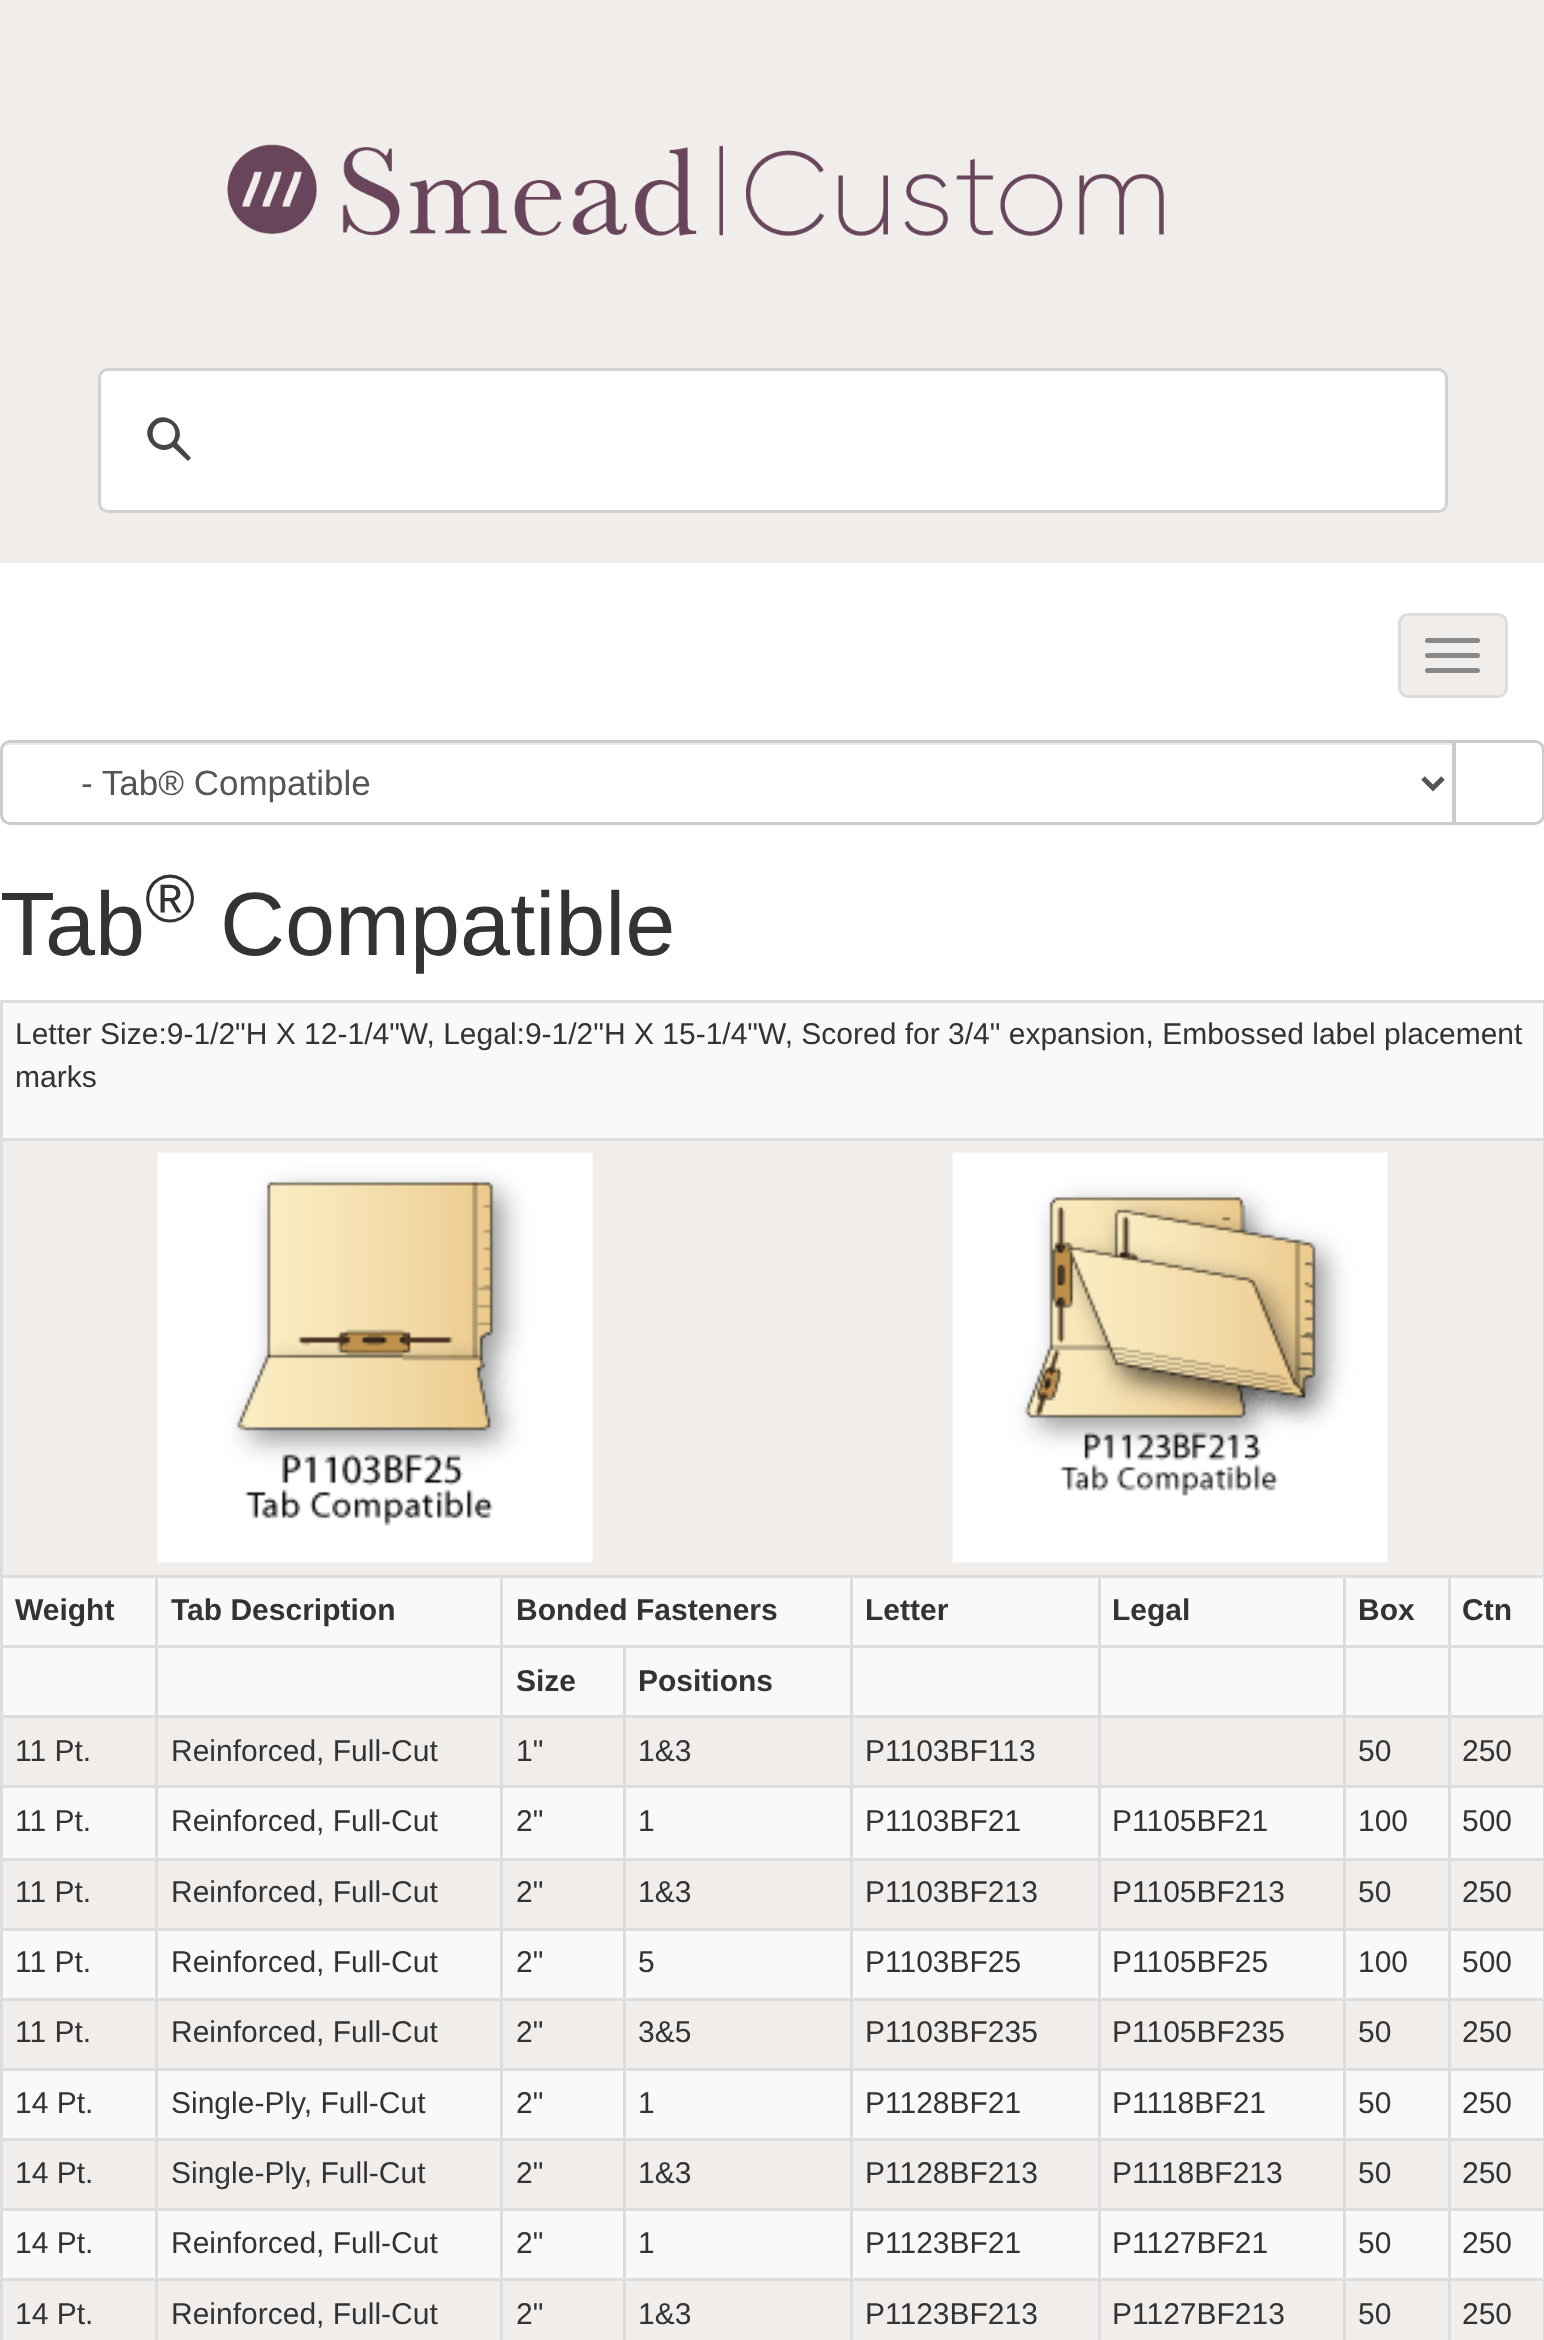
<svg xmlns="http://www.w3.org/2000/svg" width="1544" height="2340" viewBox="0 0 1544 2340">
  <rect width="100%" height="100%" fill="#fff"/>
  <path d="M0 0h1544v563H0z" fill="#f0edeb"/>
  <image x="227" y="144" width="937" height="93" href="img/1.png"/>
  <rect x="99.5" y="369.5" width="1347" height="142" rx="8.5" fill="#fff" stroke="#d2d2d2" stroke-width="3"/>
  <path d="M177 443L191 458L188 461L173 447C158 458 138 436 152 422C166 408 188 428 177 443ZM164 422C149 422 149 445 164 445C179 445 179 422 164 422Z" fill="#444746" fill-rule="evenodd"/>
  <rect x="1399.5" y="614.5" width="107" height="82" rx="8.5" fill="#f0edeb" stroke="#ddd" stroke-width="3"/>
  <rect x="1425" y="638" width="55" height="5" rx="2.5" fill="#888"/>
  <rect x="1425" y="653" width="55" height="5" rx="2.5" fill="#888"/>
  <rect x="1425" y="668" width="55" height="5" rx="2.5" fill="#888"/>
  <path d="M1454.5 741.5H1535C1539.5 741.5 1543.5 745.5 1543.5 750V815C1543.5 819.5 1539.5 823.5 1535 823.5H1454.5Z" fill="none" stroke="#ccc" stroke-width="3"/>
  <path d="M10 740H1455V825H10C4.5 825 0 820.5 0 815V750C0 744.5 4.5 740 10 740Z" fill="#fff"/>
  <path d="M10 745H1452V823H1453V743H11C8 743 5 745 4 748C5 746 8 745 10 745Z" fill="#ececec"/>
  <path d="M10 741.5H1453.5V823.5H10C5.5 823.5 1.5 819.5 1.5 815V750C1.5 745.5 5.5 741.5 10 741.5Z" fill="none" stroke="#ccc" stroke-width="3"/>
  <path d="M1423 778L1433 788L1443 778" fill="none" stroke="#555" stroke-width="5"/>
  <path d="M0 1000h1544v3H0z" fill="#ddd"/>
  <path d="M1543 1000h1v1340H1543z" fill="#ddd"/>
  <path d="M0 1000h3v1340H0z" fill="#ddd"/>
  <path d="M3 1003h1540v135H3z" fill="#f9f9f9"/>
  <path d="M3 1141h1540v434H3z" fill="#f0edeb"/>
  <path d="M0 1138h1544v3H0z" fill="#ddd"/>
  <image x="157" y="1152" width="436" height="411" href="img/2.png"/>
  <image x="952" y="1152" width="436" height="411" href="img/3.png"/>
  <path d="M3 1578h152v67H3z" fill="#f9f9f9"/>
  <path d="M1448 1575h96v3H1448z" fill="#ddd"/>
  <path d="M1448 1645h96v3H1448z" fill="#ddd"/>
  <path d="M1448 1715h96v3H1448z" fill="#ddd"/>
  <path d="M1448 1785h96v3H1448z" fill="#ddd"/>
  <path d="M1448 1858h96v3H1448z" fill="#ddd"/>
  <path d="M1448 1928h96v3H1448z" fill="#ddd"/>
  <path d="M1448 1998h96v3H1448z" fill="#ddd"/>
  <path d="M1448 2068h96v3H1448z" fill="#ddd"/>
  <path d="M1448 2138h96v3H1448z" fill="#ddd"/>
  <path d="M1448 2208h96v3H1448z" fill="#ddd"/>
  <path d="M1448 2278h96v3H1448z" fill="#ddd"/>
  <path d="M1448 2278h3v62H1448z" fill="#ddd"/>
  <path d="M1343 2278h107v3H1343z" fill="#ddd"/>
  <path d="M1448 2208h3v72H1448z" fill="#ddd"/>
  <path d="M1343 2208h107v3H1343z" fill="#ddd"/>
  <path d="M1448 2138h3v72H1448z" fill="#ddd"/>
  <path d="M1343 2138h107v3H1343z" fill="#ddd"/>
  <path d="M1448 2068h3v72H1448z" fill="#ddd"/>
  <path d="M1343 2068h107v3H1343z" fill="#ddd"/>
  <path d="M1448 1998h3v72H1448z" fill="#ddd"/>
  <path d="M1343 1998h107v3H1343z" fill="#ddd"/>
  <path d="M1448 1928h3v72H1448z" fill="#ddd"/>
  <path d="M1343 1928h107v3H1343z" fill="#ddd"/>
  <path d="M1448 1858h3v72H1448z" fill="#ddd"/>
  <path d="M1343 1858h107v3H1343z" fill="#ddd"/>
  <path d="M1448 1785h3v75H1448z" fill="#ddd"/>
  <path d="M1343 1785h107v3H1343z" fill="#ddd"/>
  <path d="M1448 1715h3v73H1448z" fill="#ddd"/>
  <path d="M1343 1715h107v3H1343z" fill="#ddd"/>
  <path d="M1448 1645h3v73H1448z" fill="#ddd"/>
  <path d="M1343 1645h107v3H1343z" fill="#ddd"/>
  <path d="M1448 1575h3v73H1448z" fill="#ddd"/>
  <path d="M1343 1575h107v3H1343z" fill="#ddd"/>
  <path d="M1343 2278h3v62H1343z" fill="#ddd"/>
  <path d="M1098 2278h247v3H1098z" fill="#ddd"/>
  <path d="M1343 2208h3v72H1343z" fill="#ddd"/>
  <path d="M1098 2208h247v3H1098z" fill="#ddd"/>
  <path d="M1343 2138h3v72H1343z" fill="#ddd"/>
  <path d="M1098 2138h247v3H1098z" fill="#ddd"/>
  <path d="M1343 2068h3v72H1343z" fill="#ddd"/>
  <path d="M1098 2068h247v3H1098z" fill="#ddd"/>
  <path d="M1343 1998h3v72H1343z" fill="#ddd"/>
  <path d="M1098 1998h247v3H1098z" fill="#ddd"/>
  <path d="M1343 1928h3v72H1343z" fill="#ddd"/>
  <path d="M1098 1928h247v3H1098z" fill="#ddd"/>
  <path d="M1343 1858h3v72H1343z" fill="#ddd"/>
  <path d="M1098 1858h247v3H1098z" fill="#ddd"/>
  <path d="M1343 1785h3v75H1343z" fill="#ddd"/>
  <path d="M1098 1785h247v3H1098z" fill="#ddd"/>
  <path d="M1343 1715h3v73H1343z" fill="#ddd"/>
  <path d="M1098 1715h247v3H1098z" fill="#ddd"/>
  <path d="M1343 1645h3v73H1343z" fill="#ddd"/>
  <path d="M1098 1645h247v3H1098z" fill="#ddd"/>
  <path d="M1343 1575h3v73H1343z" fill="#ddd"/>
  <path d="M1098 1575h247v3H1098z" fill="#ddd"/>
  <path d="M1098 2278h3v62H1098z" fill="#ddd"/>
  <path d="M850 2278h250v3H850z" fill="#ddd"/>
  <path d="M1098 2208h3v72H1098z" fill="#ddd"/>
  <path d="M850 2208h250v3H850z" fill="#ddd"/>
  <path d="M1098 2138h3v72H1098z" fill="#ddd"/>
  <path d="M850 2138h250v3H850z" fill="#ddd"/>
  <path d="M1098 2068h3v72H1098z" fill="#ddd"/>
  <path d="M850 2068h250v3H850z" fill="#ddd"/>
  <path d="M1098 1998h3v72H1098z" fill="#ddd"/>
  <path d="M850 1998h250v3H850z" fill="#ddd"/>
  <path d="M1098 1928h3v72H1098z" fill="#ddd"/>
  <path d="M850 1928h250v3H850z" fill="#ddd"/>
  <path d="M1098 1858h3v72H1098z" fill="#ddd"/>
  <path d="M850 1858h250v3H850z" fill="#ddd"/>
  <path d="M1098 1785h3v75H1098z" fill="#ddd"/>
  <path d="M850 1785h250v3H850z" fill="#ddd"/>
  <path d="M1098 1715h3v73H1098z" fill="#ddd"/>
  <path d="M850 1715h250v3H850z" fill="#ddd"/>
  <path d="M1098 1645h3v73H1098z" fill="#ddd"/>
  <path d="M850 1645h250v3H850z" fill="#ddd"/>
  <path d="M1098 1575h3v73H1098z" fill="#ddd"/>
  <path d="M850 1575h250v3H850z" fill="#ddd"/>
  <path d="M850 2278h3v62H850z" fill="#ddd"/>
  <path d="M623 2278h230v3H623z" fill="#ddd"/>
  <path d="M850 2208h3v72H850z" fill="#ddd"/>
  <path d="M623 2208h230v3H623z" fill="#ddd"/>
  <path d="M850 2138h3v72H850z" fill="#ddd"/>
  <path d="M623 2138h230v3H623z" fill="#ddd"/>
  <path d="M850 2068h3v72H850z" fill="#ddd"/>
  <path d="M623 2068h230v3H623z" fill="#ddd"/>
  <path d="M850 1998h3v72H850z" fill="#ddd"/>
  <path d="M623 1998h230v3H623z" fill="#ddd"/>
  <path d="M850 1928h3v72H850z" fill="#ddd"/>
  <path d="M623 1928h230v3H623z" fill="#ddd"/>
  <path d="M850 1858h3v72H850z" fill="#ddd"/>
  <path d="M623 1858h230v3H623z" fill="#ddd"/>
  <path d="M850 1785h3v75H850z" fill="#ddd"/>
  <path d="M623 1785h230v3H623z" fill="#ddd"/>
  <path d="M850 1715h3v73H850z" fill="#ddd"/>
  <path d="M623 1715h230v3H623z" fill="#ddd"/>
  <path d="M850 1645h3v73H850z" fill="#ddd"/>
  <path d="M623 1645h230v3H623z" fill="#ddd"/>
  <path d="M850 1575h3v73H850z" fill="#ddd"/>
  <path d="M500 1575h353v3H500z" fill="#ddd"/>
  <path d="M623 2278h3v62H623z" fill="#ddd"/>
  <path d="M500 2278h125v3H500z" fill="#ddd"/>
  <path d="M623 2208h3v72H623z" fill="#ddd"/>
  <path d="M500 2208h125v3H500z" fill="#ddd"/>
  <path d="M623 2138h3v72H623z" fill="#ddd"/>
  <path d="M500 2138h125v3H500z" fill="#ddd"/>
  <path d="M623 2068h3v72H623z" fill="#ddd"/>
  <path d="M500 2068h125v3H500z" fill="#ddd"/>
  <path d="M623 1998h3v72H623z" fill="#ddd"/>
  <path d="M500 1998h125v3H500z" fill="#ddd"/>
  <path d="M623 1928h3v72H623z" fill="#ddd"/>
  <path d="M500 1928h125v3H500z" fill="#ddd"/>
  <path d="M623 1858h3v72H623z" fill="#ddd"/>
  <path d="M500 1858h125v3H500z" fill="#ddd"/>
  <path d="M623 1785h3v75H623z" fill="#ddd"/>
  <path d="M500 1785h125v3H500z" fill="#ddd"/>
  <path d="M623 1715h3v73H623z" fill="#ddd"/>
  <path d="M500 1715h125v3H500z" fill="#ddd"/>
  <path d="M623 1645h3v73H623z" fill="#ddd"/>
  <path d="M500 1645h125v3H500z" fill="#ddd"/>
  <path d="M500 2278h3v62H500z" fill="#ddd"/>
  <path d="M155 2278h348v3H155z" fill="#ddd"/>
  <path d="M500 2208h3v72H500z" fill="#ddd"/>
  <path d="M155 2208h348v3H155z" fill="#ddd"/>
  <path d="M500 2138h3v72H500z" fill="#ddd"/>
  <path d="M155 2138h348v3H155z" fill="#ddd"/>
  <path d="M500 2068h3v72H500z" fill="#ddd"/>
  <path d="M155 2068h348v3H155z" fill="#ddd"/>
  <path d="M500 1998h3v72H500z" fill="#ddd"/>
  <path d="M155 1998h348v3H155z" fill="#ddd"/>
  <path d="M500 1928h3v72H500z" fill="#ddd"/>
  <path d="M155 1928h348v3H155z" fill="#ddd"/>
  <path d="M500 1858h3v72H500z" fill="#ddd"/>
  <path d="M155 1858h348v3H155z" fill="#ddd"/>
  <path d="M500 1785h3v75H500z" fill="#ddd"/>
  <path d="M155 1785h348v3H155z" fill="#ddd"/>
  <path d="M500 1715h3v73H500z" fill="#ddd"/>
  <path d="M155 1715h348v3H155z" fill="#ddd"/>
  <path d="M500 1645h3v73H500z" fill="#ddd"/>
  <path d="M155 1645h348v3H155z" fill="#ddd"/>
  <path d="M500 1575h3v73H500z" fill="#ddd"/>
  <path d="M155 1575h348v3H155z" fill="#ddd"/>
  <path d="M155 2278h3v62H155z" fill="#ddd"/>
  <path d="M0 2278h158v3H0z" fill="#ddd"/>
  <path d="M155 2208h3v72H155z" fill="#ddd"/>
  <path d="M0 2208h158v3H0z" fill="#ddd"/>
  <path d="M155 2138h3v72H155z" fill="#ddd"/>
  <path d="M0 2138h158v3H0z" fill="#ddd"/>
  <path d="M155 2068h3v72H155z" fill="#ddd"/>
  <path d="M0 2068h158v3H0z" fill="#ddd"/>
  <path d="M155 1998h3v72H155z" fill="#ddd"/>
  <path d="M0 1998h158v3H0z" fill="#ddd"/>
  <path d="M155 1928h3v72H155z" fill="#ddd"/>
  <path d="M0 1928h158v3H0z" fill="#ddd"/>
  <path d="M155 1858h3v72H155z" fill="#ddd"/>
  <path d="M0 1858h158v3H0z" fill="#ddd"/>
  <path d="M155 1785h3v75H155z" fill="#ddd"/>
  <path d="M0 1785h158v3H0z" fill="#ddd"/>
  <path d="M155 1715h3v73H155z" fill="#ddd"/>
  <path d="M0 1715h158v3H0z" fill="#ddd"/>
  <path d="M155 1645h3v73H155z" fill="#ddd"/>
  <path d="M0 1645h158v3H0z" fill="#ddd"/>
  <path d="M155 1575h3v73H155z" fill="#ddd"/>
  <path d="M0 1575h158v3H0z" fill="#ddd"/>
  <path d="M158 1578h342v67H158z" fill="#f9f9f9"/>
  <path d="M503 1578h347v67H503z" fill="#f9f9f9"/>
  <path d="M853 1578h245v67H853z" fill="#f9f9f9"/>
  <path d="M1101 1578h242v67H1101z" fill="#f9f9f9"/>
  <path d="M1346 1578h102v67H1346z" fill="#f9f9f9"/>
  <path d="M1451 1578h92v67H1451z" fill="#f9f9f9"/>
  <path d="M3 1648h152v67H3z" fill="#f9f9f9"/>
  <path d="M158 1648h342v67H158z" fill="#f9f9f9"/>
  <path d="M503 1648h120v67H503z" fill="#f9f9f9"/>
  <path d="M626 1648h224v67H626z" fill="#f9f9f9"/>
  <path d="M853 1648h245v67H853z" fill="#f9f9f9"/>
  <path d="M1101 1648h242v67H1101z" fill="#f9f9f9"/>
  <path d="M1346 1648h102v67H1346z" fill="#f9f9f9"/>
  <path d="M1451 1648h92v67H1451z" fill="#f9f9f9"/>
  <path d="M3 1718h152v67H3z" fill="#f0edeb"/>
  <path d="M158 1718h342v67H158z" fill="#f0edeb"/>
  <path d="M503 1718h120v67H503z" fill="#f0edeb"/>
  <path d="M626 1718h224v67H626z" fill="#f0edeb"/>
  <path d="M853 1718h245v67H853z" fill="#f0edeb"/>
  <path d="M1101 1718h242v67H1101z" fill="#f0edeb"/>
  <path d="M1346 1718h102v67H1346z" fill="#f0edeb"/>
  <path d="M1451 1718h92v67H1451z" fill="#f0edeb"/>
  <path d="M3 1788h152v70H3z" fill="#f9f9f9"/>
  <path d="M158 1788h342v70H158z" fill="#f9f9f9"/>
  <path d="M503 1788h120v70H503z" fill="#f9f9f9"/>
  <path d="M626 1788h224v70H626z" fill="#f9f9f9"/>
  <path d="M853 1788h245v70H853z" fill="#f9f9f9"/>
  <path d="M1101 1788h242v70H1101z" fill="#f9f9f9"/>
  <path d="M1346 1788h102v70H1346z" fill="#f9f9f9"/>
  <path d="M1451 1788h92v70H1451z" fill="#f9f9f9"/>
  <path d="M3 1861h152v67H3z" fill="#f0edeb"/>
  <path d="M158 1861h342v67H158z" fill="#f0edeb"/>
  <path d="M503 1861h120v67H503z" fill="#f0edeb"/>
  <path d="M626 1861h224v67H626z" fill="#f0edeb"/>
  <path d="M853 1861h245v67H853z" fill="#f0edeb"/>
  <path d="M1101 1861h242v67H1101z" fill="#f0edeb"/>
  <path d="M1346 1861h102v67H1346z" fill="#f0edeb"/>
  <path d="M1451 1861h92v67H1451z" fill="#f0edeb"/>
  <path d="M3 1931h152v67H3z" fill="#f9f9f9"/>
  <path d="M158 1931h342v67H158z" fill="#f9f9f9"/>
  <path d="M503 1931h120v67H503z" fill="#f9f9f9"/>
  <path d="M626 1931h224v67H626z" fill="#f9f9f9"/>
  <path d="M853 1931h245v67H853z" fill="#f9f9f9"/>
  <path d="M1101 1931h242v67H1101z" fill="#f9f9f9"/>
  <path d="M1346 1931h102v67H1346z" fill="#f9f9f9"/>
  <path d="M1451 1931h92v67H1451z" fill="#f9f9f9"/>
  <path d="M3 2001h152v67H3z" fill="#f0edeb"/>
  <path d="M158 2001h342v67H158z" fill="#f0edeb"/>
  <path d="M503 2001h120v67H503z" fill="#f0edeb"/>
  <path d="M626 2001h224v67H626z" fill="#f0edeb"/>
  <path d="M853 2001h245v67H853z" fill="#f0edeb"/>
  <path d="M1101 2001h242v67H1101z" fill="#f0edeb"/>
  <path d="M1346 2001h102v67H1346z" fill="#f0edeb"/>
  <path d="M1451 2001h92v67H1451z" fill="#f0edeb"/>
  <path d="M3 2071h152v67H3z" fill="#f9f9f9"/>
  <path d="M158 2071h342v67H158z" fill="#f9f9f9"/>
  <path d="M503 2071h120v67H503z" fill="#f9f9f9"/>
  <path d="M626 2071h224v67H626z" fill="#f9f9f9"/>
  <path d="M853 2071h245v67H853z" fill="#f9f9f9"/>
  <path d="M1101 2071h242v67H1101z" fill="#f9f9f9"/>
  <path d="M1346 2071h102v67H1346z" fill="#f9f9f9"/>
  <path d="M1451 2071h92v67H1451z" fill="#f9f9f9"/>
  <path d="M3 2141h152v67H3z" fill="#f0edeb"/>
  <path d="M158 2141h342v67H158z" fill="#f0edeb"/>
  <path d="M503 2141h120v67H503z" fill="#f0edeb"/>
  <path d="M626 2141h224v67H626z" fill="#f0edeb"/>
  <path d="M853 2141h245v67H853z" fill="#f0edeb"/>
  <path d="M1101 2141h242v67H1101z" fill="#f0edeb"/>
  <path d="M1346 2141h102v67H1346z" fill="#f0edeb"/>
  <path d="M1451 2141h92v67H1451z" fill="#f0edeb"/>
  <path d="M3 2211h152v67H3z" fill="#f9f9f9"/>
  <path d="M158 2211h342v67H158z" fill="#f9f9f9"/>
  <path d="M503 2211h120v67H503z" fill="#f9f9f9"/>
  <path d="M626 2211h224v67H626z" fill="#f9f9f9"/>
  <path d="M853 2211h245v67H853z" fill="#f9f9f9"/>
  <path d="M1101 2211h242v67H1101z" fill="#f9f9f9"/>
  <path d="M1346 2211h102v67H1346z" fill="#f9f9f9"/>
  <path d="M1451 2211h92v67H1451z" fill="#f9f9f9"/>
  <path d="M3 2281h152v59H3z" fill="#f0edeb"/>
  <path d="M158 2281h342v59H158z" fill="#f0edeb"/>
  <path d="M503 2281h120v59H503z" fill="#f0edeb"/>
  <path d="M626 2281h224v59H626z" fill="#f0edeb"/>
  <path d="M853 2281h245v59H853z" fill="#f0edeb"/>
  <path d="M1101 2281h242v59H1101z" fill="#f0edeb"/>
  <path d="M1346 2281h102v59H1346z" fill="#f0edeb"/>
  <path d="M1451 2281h92v59H1451z" fill="#f0edeb"/>
  <text x="81" y="795" font-family="Liberation Sans" font-size="35" fill="#555">- Tab® Compatible</text>
  <text x="0" y="955" font-family="Liberation Sans" font-size="90" fill="#333">Tab</text>
  <text x="145" y="922" font-family="Liberation Sans" font-size="68" fill="#333">®</text>
  <text x="220" y="955" font-family="Liberation Sans" font-size="90" fill="#333">Compatible</text>
  <g font-family="Liberation Sans" font-size="30" fill="#333">
    <text x="15" y="1044">Letter Size:9-1/2"H X 12-1/4"W, Legal:9-1/2"H X 15-1/4"W, Scored for 3/4" expansion, Embossed label placement</text>
    <text x="15" y="1087">marks</text>
  </g>
  <g font-family="Liberation Sans" font-size="30" font-weight="bold" fill="#333">
    <text x="15" y="1620">Weight</text>
    <text x="171" y="1620">Tab Description</text>
    <text x="516" y="1620">Bonded Fasteners</text>
    <text x="865" y="1620">Letter</text>
    <text x="1112" y="1620">Legal</text>
    <text x="1358" y="1620">Box</text>
    <text x="1462" y="1620">Ctn</text>
    <text x="516" y="1691">Size</text>
    <text x="638" y="1691">Positions</text>
  </g>
  <g font-family="Liberation Sans" font-size="30" fill="#333">
    <text x="15" y="1761">11 Pt.</text>
    <text x="171" y="1761">Reinforced, Full-Cut</text>
    <text x="516" y="1761">1"</text>
    <text x="638" y="1761">1&amp;3</text>
    <text x="865" y="1761">P1103BF113</text>
    <text x="1358" y="1761">50</text>
    <text x="1462" y="1761">250</text>
    <text x="15" y="1831">11 Pt.</text>
    <text x="171" y="1831">Reinforced, Full-Cut</text>
    <text x="516" y="1831">2"</text>
    <text x="638" y="1831">1</text>
    <text x="865" y="1831">P1103BF21</text>
    <text x="1112" y="1831">P1105BF21</text>
    <text x="1358" y="1831">100</text>
    <text x="1462" y="1831">500</text>
    <text x="15" y="1902">11 Pt.</text>
    <text x="171" y="1902">Reinforced, Full-Cut</text>
    <text x="516" y="1902">2"</text>
    <text x="638" y="1902">1&amp;3</text>
    <text x="865" y="1902">P1103BF213</text>
    <text x="1112" y="1902">P1105BF213</text>
    <text x="1358" y="1902">50</text>
    <text x="1462" y="1902">250</text>
    <text x="15" y="1972">11 Pt.</text>
    <text x="171" y="1972">Reinforced, Full-Cut</text>
    <text x="516" y="1972">2"</text>
    <text x="638" y="1972">5</text>
    <text x="865" y="1972">P1103BF25</text>
    <text x="1112" y="1972">P1105BF25</text>
    <text x="1358" y="1972">100</text>
    <text x="1462" y="1972">500</text>
    <text x="15" y="2042">11 Pt.</text>
    <text x="171" y="2042">Reinforced, Full-Cut</text>
    <text x="516" y="2042">2"</text>
    <text x="638" y="2042">3&amp;5</text>
    <text x="865" y="2042">P1103BF235</text>
    <text x="1112" y="2042">P1105BF235</text>
    <text x="1358" y="2042">50</text>
    <text x="1462" y="2042">250</text>
    <text x="15" y="2113">14 Pt.</text>
    <text x="171" y="2113">Single-Ply, Full-Cut</text>
    <text x="516" y="2113">2"</text>
    <text x="638" y="2113">1</text>
    <text x="865" y="2113">P1128BF21</text>
    <text x="1112" y="2113">P1118BF21</text>
    <text x="1358" y="2113">50</text>
    <text x="1462" y="2113">250</text>
    <text x="15" y="2183">14 Pt.</text>
    <text x="171" y="2183">Single-Ply, Full-Cut</text>
    <text x="516" y="2183">2"</text>
    <text x="638" y="2183">1&amp;3</text>
    <text x="865" y="2183">P1128BF213</text>
    <text x="1112" y="2183">P1118BF213</text>
    <text x="1358" y="2183">50</text>
    <text x="1462" y="2183">250</text>
    <text x="15" y="2253">14 Pt.</text>
    <text x="171" y="2253">Reinforced, Full-Cut</text>
    <text x="516" y="2253">2"</text>
    <text x="638" y="2253">1</text>
    <text x="865" y="2253">P1123BF21</text>
    <text x="1112" y="2253">P1127BF21</text>
    <text x="1358" y="2253">50</text>
    <text x="1462" y="2253">250</text>
    <text x="15" y="2324">14 Pt.</text>
    <text x="171" y="2324">Reinforced, Full-Cut</text>
    <text x="516" y="2324">2"</text>
    <text x="638" y="2324">1&amp;3</text>
    <text x="865" y="2324">P1123BF213</text>
    <text x="1112" y="2324">P1127BF213</text>
    <text x="1358" y="2324">50</text>
    <text x="1462" y="2324">250</text>
  </g>
</svg>
